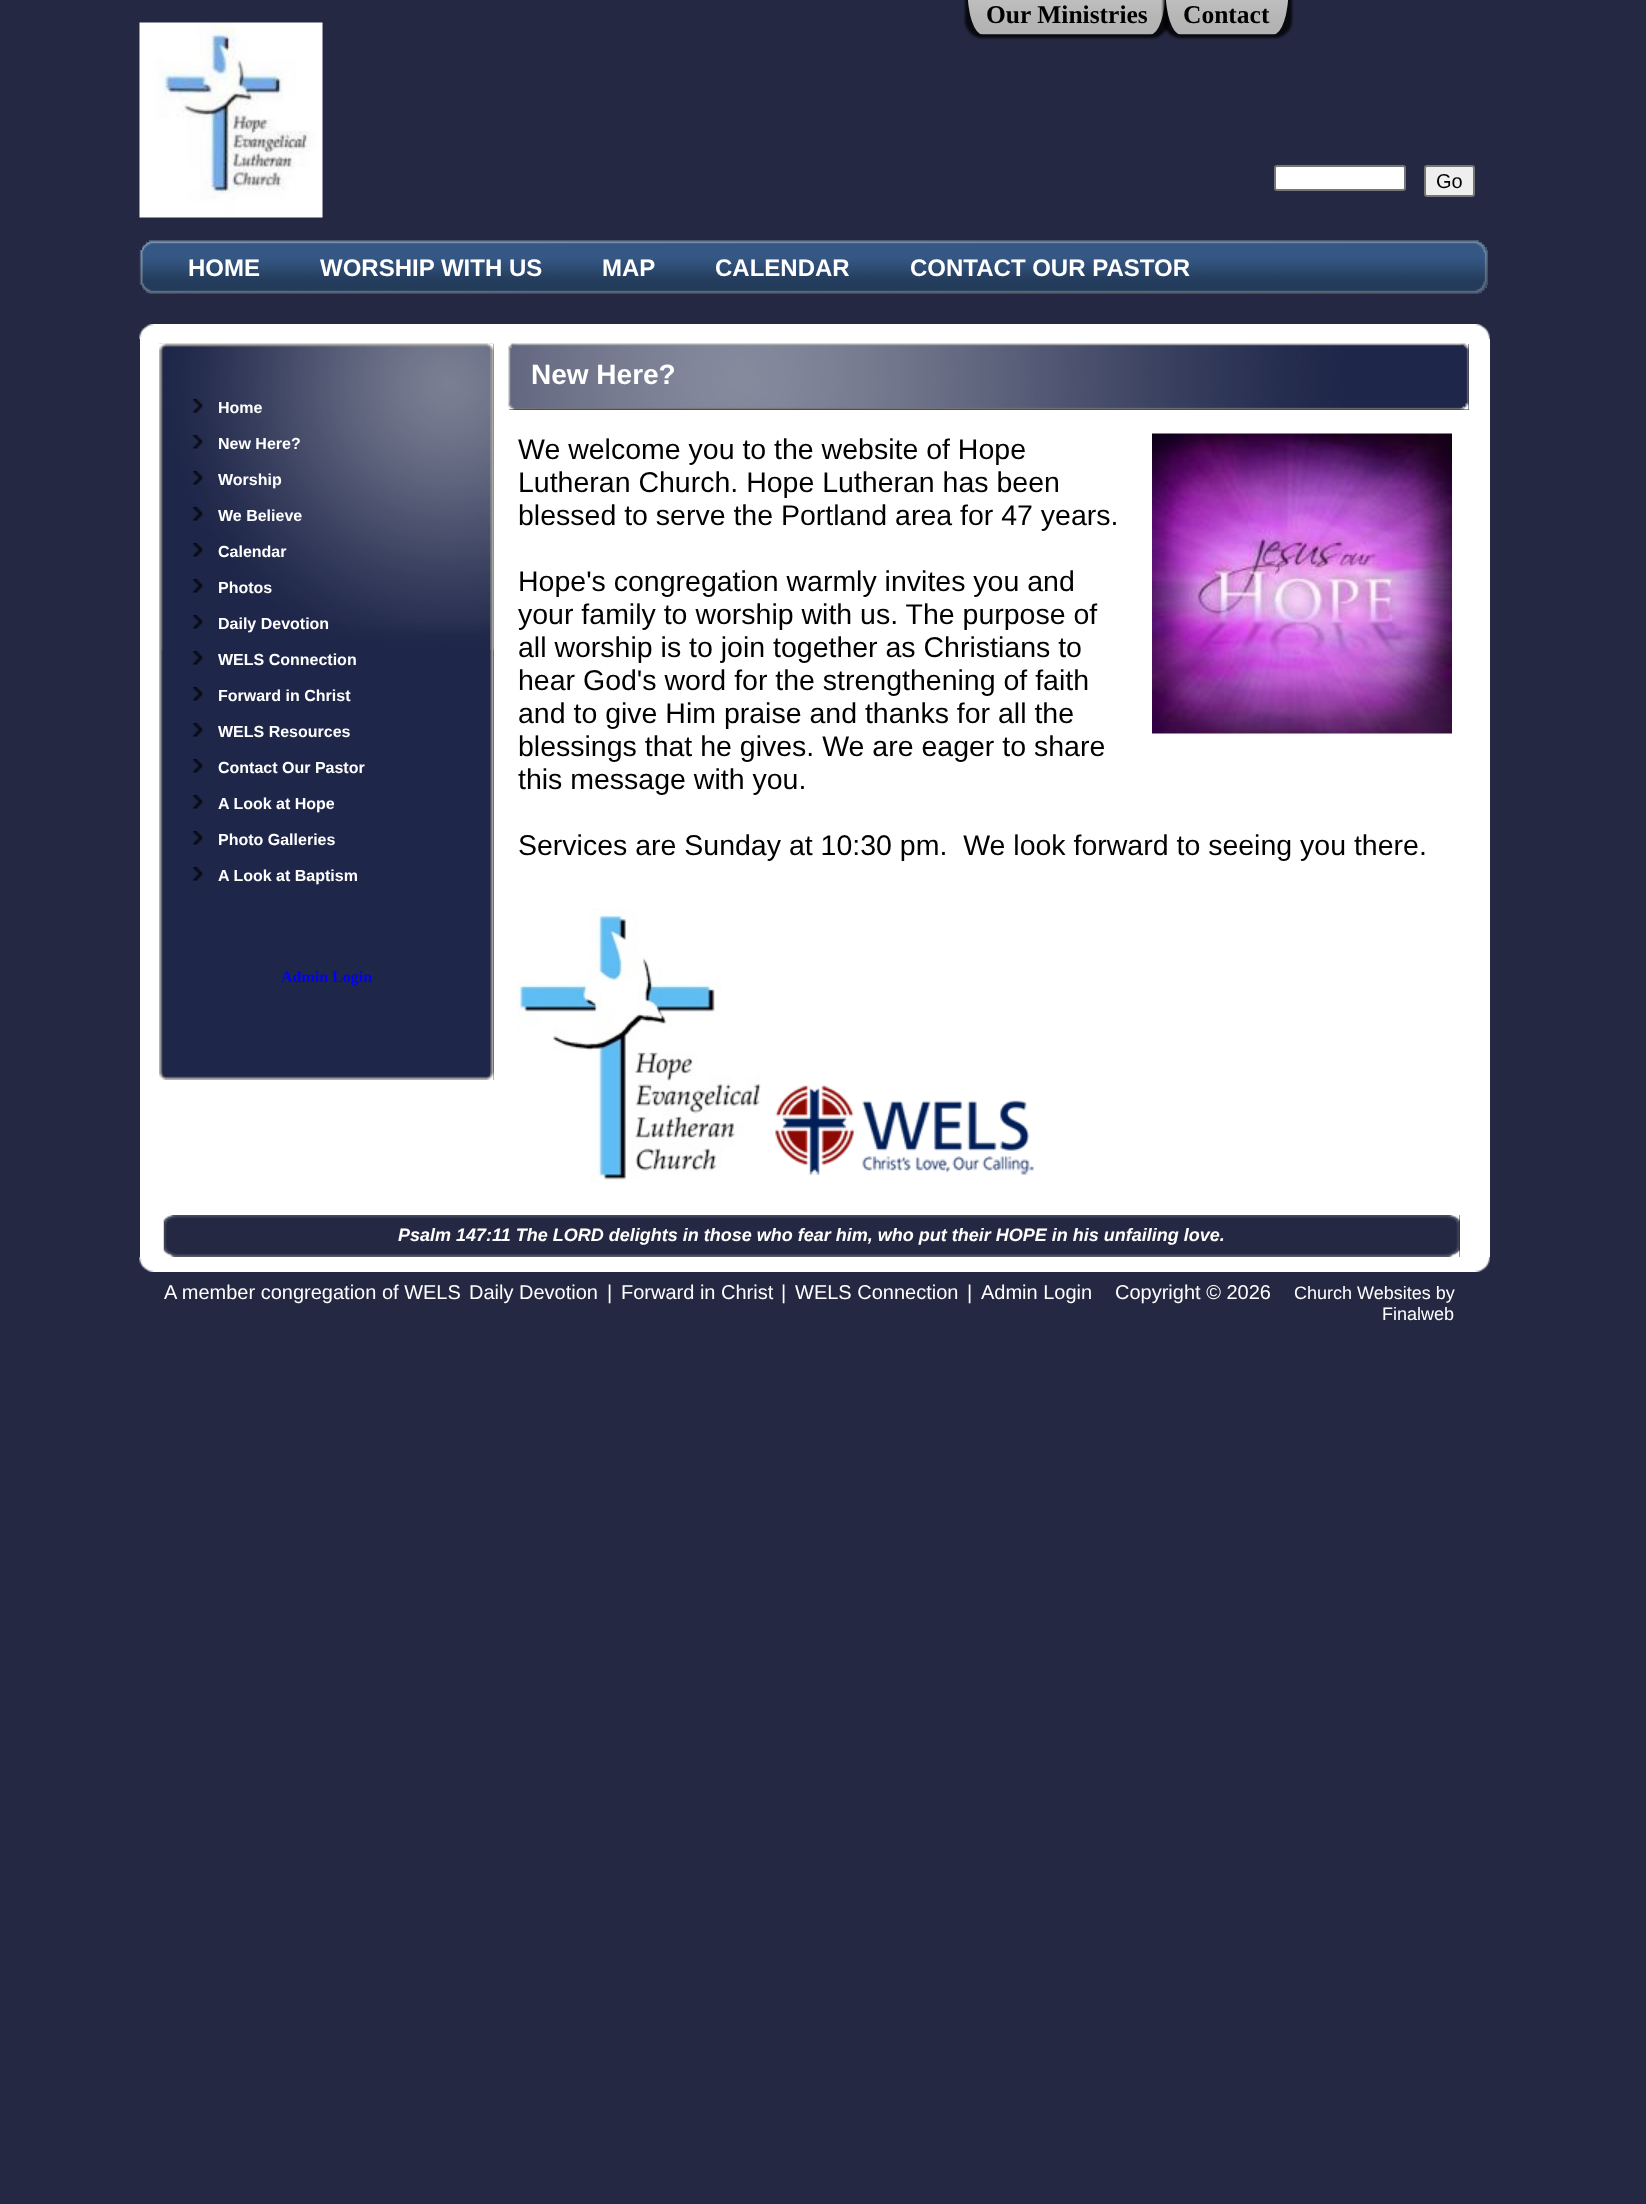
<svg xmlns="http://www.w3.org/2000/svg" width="1646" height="2204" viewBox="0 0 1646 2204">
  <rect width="100%" height="100%" fill="#242842"/>
  <rect x="965" y="-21" width="204" height="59" rx="18" fill="#000000bf" filter="blur(1px)"/>
  <image x="968" y="0" width="197" height="35" href="img/1.png"/>
  <rect x="1163" y="-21" width="129" height="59" rx="18" fill="#000000bf" filter="blur(1px)"/>
  <image x="1166" y="0" width="122" height="35" href="img/2.png"/>
  <image x="139" y="22" width="184" height="196" href="img/3.png"/>
  <rect x="1275" y="166" width="130" height="24" rx="2" fill="#fff" stroke="#767676" stroke-width="2"/>
  <rect x="1425" y="166" width="49" height="30" rx="2" fill="#efefef" stroke="#767676" stroke-width="2"/>
  <path d="M140 240h1348v54H140z" fill="#355784"/>
  <image x="139" y="240" width="1349" height="54" href="img/4.png"/>
  <path d="M1479 240h9v2H1479z" fill="#242842"/>
  <path d="M140 240h9v2H140z" fill="#242842"/>
  <path d="M1482 242h6v2H1482z" fill="#242842"/>
  <path d="M140 242h6v2H140z" fill="#242842"/>
  <path d="M1484 244h5v1H1484z" fill="#242842"/>
  <path d="M140 244h5v1H140z" fill="#242842"/>
  <path d="M1485 245h3v2H1485z" fill="#242842"/>
  <path d="M140 245h3v2H140z" fill="#242842"/>
  <path d="M1487 247h2v3H1487z" fill="#242842"/>
  <path d="M140 247h2v3H140z" fill="#242842"/>
  <path d="M1487 285h2v4H1487z" fill="#242842"/>
  <path d="M140 285h2v3H140z" fill="#242842"/>
  <path d="M1485 288h3v2H1485z" fill="#242842"/>
  <path d="M140 288h3v2H140z" fill="#242842"/>
  <path d="M1484 290h5v2H1484z" fill="#242842"/>
  <path d="M140 290h5v1H140z" fill="#242842"/>
  <path d="M1482 291h6v2H1482z" fill="#242842"/>
  <path d="M140 291h6v2H140z" fill="#242842"/>
  <path d="M1479 293h9v1H1479z" fill="#242842"/>
  <path d="M140 293h9v1H140z" fill="#242842"/>
  <image x="139" y="324" width="1351" height="15" href="img/5.png"/>
  <path d="M140 339h1350v918H140z" fill="#fff"/>
  <path d="M161 344h333v736H161z" fill="#1e2649"/>
  <image x="159" y="343" width="335" height="737" href="img/6.png"/>
  <image x="159" y="343" width="335" height="307" href="img/7.png"/>
  <image x="192" y="399" width="11" height="14" href="img/8.png"/>
  <image x="192" y="435" width="11" height="14" href="img/9.png"/>
  <image x="192" y="471" width="11" height="14" href="img/10.png"/>
  <image x="192" y="507" width="11" height="14" href="img/11.png"/>
  <image x="192" y="543" width="11" height="14" href="img/12.png"/>
  <image x="192" y="579" width="11" height="14" href="img/12.png"/>
  <image x="192" y="615" width="11" height="14" href="img/12.png"/>
  <image x="192" y="651" width="11" height="14" href="img/12.png"/>
  <image x="192" y="687" width="11" height="14" href="img/12.png"/>
  <image x="192" y="723" width="11" height="14" href="img/12.png"/>
  <image x="192" y="759" width="11" height="14" href="img/12.png"/>
  <image x="192" y="795" width="11" height="14" href="img/12.png"/>
  <image x="192" y="831" width="11" height="14" href="img/12.png"/>
  <image x="192" y="867" width="11" height="14" href="img/12.png"/>
  <image x="159" y="1072" width="335" height="8" href="img/13.png"/>
  <path d="M509 344h960v66H509z" fill="#1e2649"/>
  <image x="508" y="343" width="961" height="67" href="img/14.png"/>
  <image x="1152" y="433" width="300" height="301" href="img/15.png"/>
  <image x="517" y="908" width="244" height="275" href="img/16.png"/>
  <image x="775" y="1085" width="259" height="90" href="img/17.png"/>
  <path d="M164 1215h1296v42H164z" fill="#242842"/>
  <image x="163" y="1215" width="1297" height="42" href="img/18.png"/>
  <image x="139" y="1257" width="1351" height="15" href="img/19.png"/>
  <g font-family="Liberation Serif" font-size="25.5" font-weight="bold" fill="#000">
    <text x="986" y="23">Our Ministries</text>
    <text x="1183" y="23">Contact</text>
  </g>
  <text x="1436" y="188" font-family="Liberation Sans" font-size="20" fill="#000">Go</text>
  <g font-family="Liberation Sans" font-size="24" font-weight="bold" fill="#fff">
    <text x="188" y="276">HOME</text>
    <text x="320" y="276">WORSHIP WITH US</text>
    <text x="602" y="276">MAP</text>
    <text x="715" y="276">CALENDAR</text>
    <text x="910" y="276">CONTACT OUR PASTOR</text>
  </g>
  <g font-family="Liberation Sans" font-size="16" font-weight="bold" fill="#fff">
    <text x="218" y="413">Home</text>
    <text x="218" y="449">New Here?</text>
    <text x="218" y="485">Worship</text>
    <text x="218" y="521">We Believe</text>
    <text x="218" y="557">Calendar</text>
    <text x="218" y="593">Photos</text>
    <text x="218" y="629">Daily Devotion</text>
    <text x="218" y="665">WELS Connection</text>
    <text x="218" y="701">Forward in Christ</text>
    <text x="218" y="737">WELS Resources</text>
    <text x="218" y="773">Contact Our Pastor</text>
    <text x="218" y="809">A Look at Hope</text>
    <text x="218" y="845">Photo Galleries</text>
    <text x="218" y="881">A Look at Baptism</text>
  </g>
  <text x="281" y="982" font-family="Liberation Serif" font-size="16" font-weight="bold" fill="#00f">Admin Login</text>
  <text x="531" y="384" font-family="Liberation Sans" font-size="28" font-weight="bold" fill="#fff">New Here?</text>
  <g font-family="Liberation Sans" font-size="28.5" fill="#000">
    <text x="518" y="459">We welcome you to the website of Hope</text>
    <text x="518" y="492">Lutheran Church. Hope Lutheran has been</text>
    <text x="518" y="525">blessed to serve the Portland area for 47 years.</text>
    <text x="518" y="591">Hope's congregation warmly invites you and</text>
    <text x="518" y="624">your family to worship with us. The purpose of</text>
    <text x="518" y="657">all worship is to join together as Christians to</text>
    <text x="518" y="690">hear God's word for the strengthening of faith</text>
    <text x="518" y="723">and to give Him praise and thanks for all the</text>
    <text x="518" y="756">blessings that he gives. We are eager to share</text>
    <text x="518" y="789">this message with you.</text>
    <text x="518" y="855" xml:space="preserve">Services are Sunday at 10:30 pm.  We look forward to seeing you there.</text>
  </g>
  <text x="398" y="1241" font-family="Liberation Sans" font-size="18" font-weight="bold" font-style="italic" fill="#fff">Psalm 147:11 The LORD delights in those who fear him, who put their HOPE in his unfailing love.</text>
  <g font-family="Liberation Sans" font-size="20" fill="#fff">
    <text x="164" y="1299">A member congregation of WELS</text>
    <text x="469" y="1299">Daily Devotion</text>
    <text x="607" y="1299">|</text>
    <text x="621" y="1299">Forward in Christ</text>
    <text x="781" y="1299">|</text>
    <text x="795" y="1299">WELS Connection</text>
    <text x="967" y="1299">|</text>
    <text x="981" y="1299">Admin Login</text>
    <text x="1115" y="1299">Copyright © 2026</text>
  </g>
  <g font-family="Liberation Sans" font-size="18" fill="#fff">
    <text x="1294" y="1299">Church Websites by</text>
    <text x="1382" y="1320">Finalweb</text>
  </g>
</svg>
